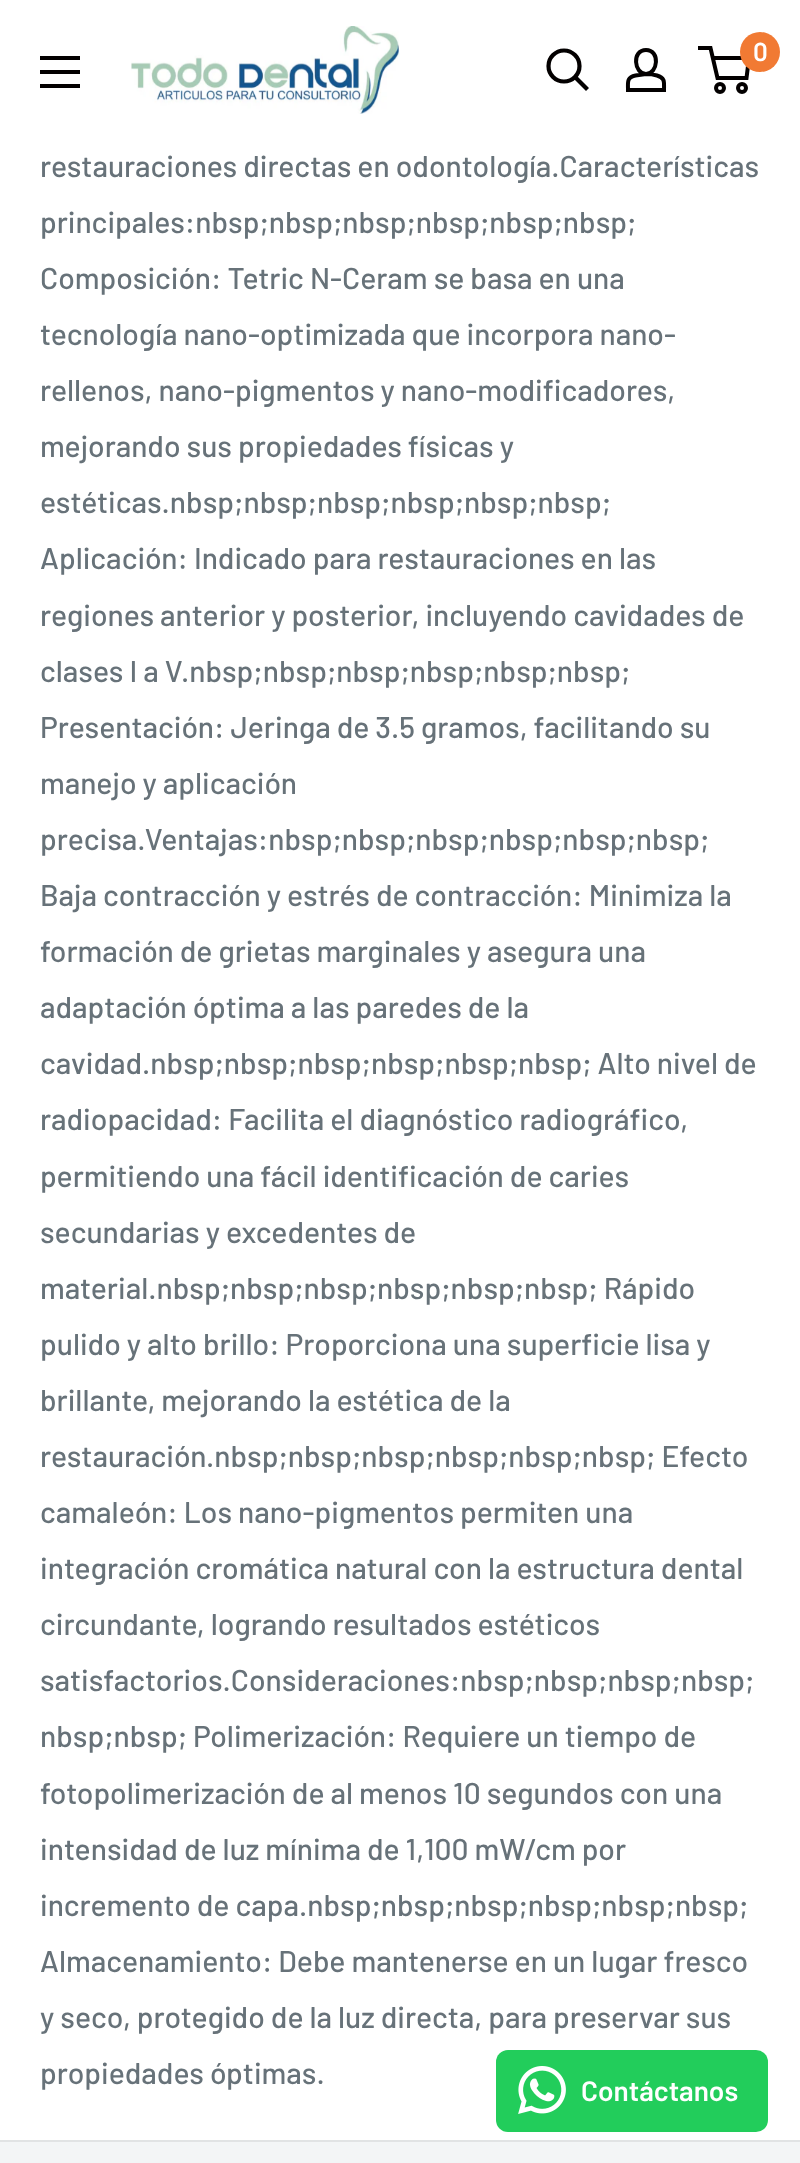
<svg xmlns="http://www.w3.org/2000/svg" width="800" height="2163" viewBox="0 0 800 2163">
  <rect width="100%" height="100%" fill="#f3f5f6"/>
  <path d="M0 0h800v2140H0z" fill="#fff"/>
  <image x="131" y="26" width="269" height="88" href="img/1.png"/>
  <path d="M586 88L575.5 77.5" fill="none" stroke="#030000" stroke-width="4.2" stroke-linecap="square"/>
  <circle cx="564" cy="66" r="15.5" fill="none" stroke="#030000" stroke-width="4.2"/>
  <path d="M646 74C650 74 653.5 74.5 657 75.5C665.5 78 664 82.5 664 90H628C628 82 626.5 77.5 635.5 75.5ZM646 74C634 74 631.5 50 646 50C660.5 50 658 74 646 74Z" fill="none" stroke="#030000" stroke-width="4"/>
  <circle cx="720" cy="88" r="4" fill="none" stroke="#030000" stroke-width="4"/>
  <circle cx="742" cy="88" r="4" fill="none" stroke="#030000" stroke-width="4"/>
  <path d="M712.5 58H749L746.5 78H717.5L710.5 48H698" fill="none" stroke="#030000" stroke-width="4"/>
  <circle cx="760" cy="52" r="20" fill="#f17a33"/>
  <path d="M40 84H80V88H40ZM40 56H80V60H40ZM40 70H80V74H40Z" fill="#030000" fill-rule="evenodd"/>
  <path d="M0 2140h800v2H0z" fill="#e1e3e4"/>
  <rect x="496" y="2050" width="272" height="82" rx="12" fill="#22cd5b"/>
  <image x="518" y="2066" width="48" height="48" href="img/2.png"/>
  <text x="753" y="61" font-family="Barlow" font-size="26" font-weight="600" fill="#fff">0</text>
  <g font-family="Barlow" font-size="30" font-weight="500" fill="#677279">
    <text x="40" y="177">restauraciones directas en odontología.Características</text>
    <text x="40" y="233">principales:nbsp;nbsp;nbsp;nbsp;nbsp;nbsp;</text>
    <text x="40" y="289">Composición: Tetric N-Ceram se basa en una</text>
    <text x="40" y="345">tecnología nano-optimizada que incorpora nano-</text>
    <text x="40" y="401">rellenos, nano-pigmentos y nano-modificadores,</text>
    <text x="40" y="457">mejorando sus propiedades físicas y</text>
    <text x="40" y="513">estéticas.nbsp;nbsp;nbsp;nbsp;nbsp;nbsp;</text>
    <text x="40" y="569">Aplicación: Indicado para restauraciones en las</text>
    <text x="40" y="626">regiones anterior y posterior, incluyendo cavidades de</text>
    <text x="40" y="682">clases I a V.nbsp;nbsp;nbsp;nbsp;nbsp;nbsp;</text>
    <text x="40" y="738">Presentación: Jeringa de 3.5 gramos, facilitando su</text>
    <text x="40" y="794">manejo y aplicación</text>
    <text x="40" y="850">precisa.Ventajas:nbsp;nbsp;nbsp;nbsp;nbsp;nbsp;</text>
    <text x="40" y="906">Baja contracción y estrés de contracción: Minimiza la</text>
    <text x="40" y="962">formación de grietas marginales y asegura una</text>
    <text x="40" y="1018">adaptación óptima a las paredes de la</text>
    <text x="40" y="1074">cavidad.nbsp;nbsp;nbsp;nbsp;nbsp;nbsp; Alto nivel de</text>
    <text x="40" y="1130">radiopacidad: Facilita el diagnóstico radiográfico,</text>
    <text x="40" y="1187">permitiendo una fácil identificación de caries</text>
    <text x="40" y="1243">secundarias y excedentes de</text>
    <text x="40" y="1299">material.nbsp;nbsp;nbsp;nbsp;nbsp;nbsp; Rápido</text>
    <text x="40" y="1355">pulido y alto brillo: Proporciona una superficie lisa y</text>
    <text x="40" y="1411">brillante, mejorando la estética de la</text>
    <text x="40" y="1467">restauración.nbsp;nbsp;nbsp;nbsp;nbsp;nbsp; Efecto</text>
    <text x="40" y="1523">camaleón: Los nano-pigmentos permiten una</text>
    <text x="40" y="1579">integración cromática natural con la estructura dental</text>
    <text x="40" y="1635">circundante, logrando resultados estéticos</text>
    <text x="40" y="1691">satisfactorios.Consideraciones:nbsp;nbsp;nbsp;nbsp;</text>
    <text x="40" y="1747">nbsp;nbsp; Polimerización: Requiere un tiempo de</text>
    <text x="40" y="1804">fotopolimerización de al menos 10 segundos con una</text>
    <text x="40" y="1860">intensidad de luz mínima de 1,100 mW/cm por</text>
    <text x="40" y="1916">incremento de capa.nbsp;nbsp;nbsp;nbsp;nbsp;nbsp;</text>
    <text x="40" y="1972">Almacenamiento: Debe mantenerse en un lugar fresco</text>
    <text x="40" y="2028">y seco, protegido de la luz directa, para preservar sus</text>
    <text x="40" y="2084">propiedades óptimas.</text>
  </g>
  <text x="581" y="2101" font-family="Barlow" font-size="28" font-weight="600" fill="#fff">Contáctanos</text>
</svg>
